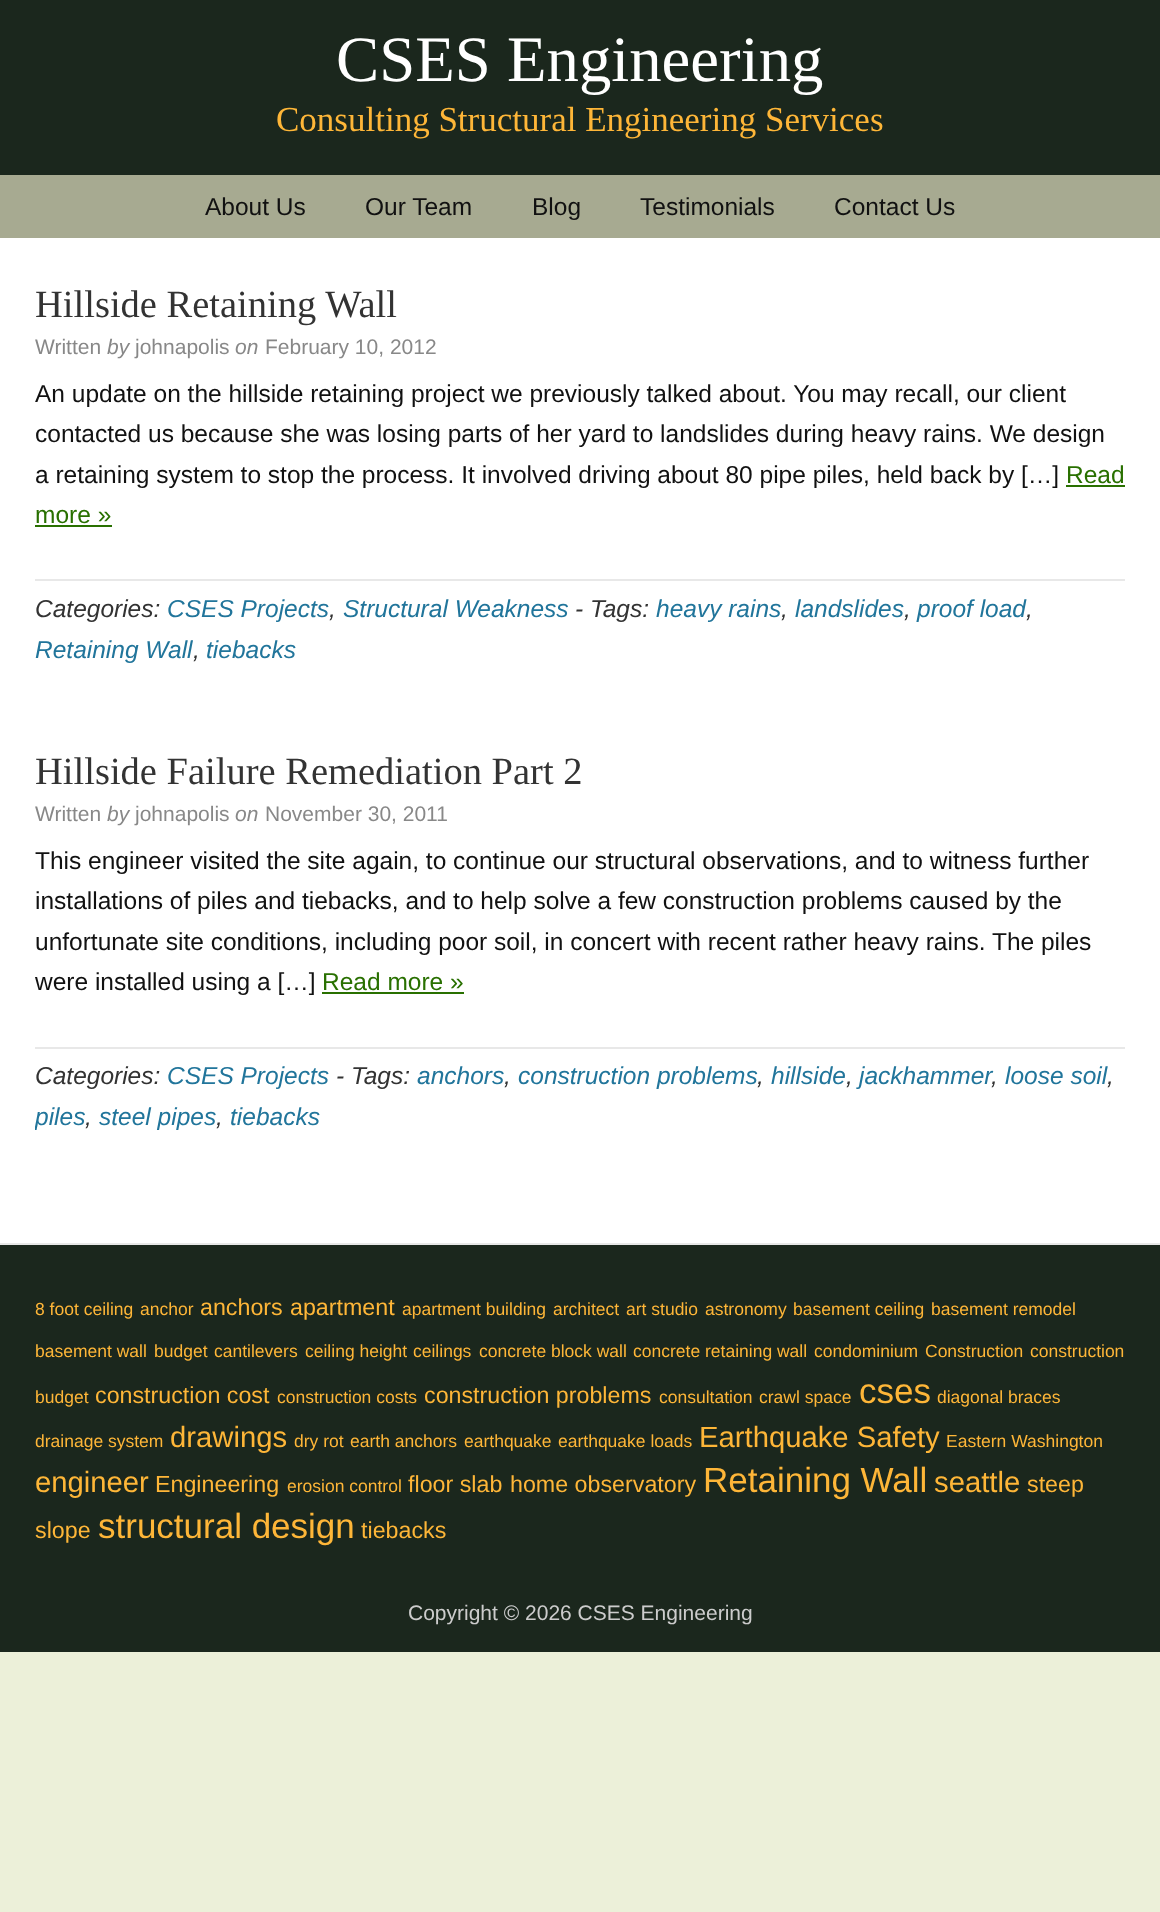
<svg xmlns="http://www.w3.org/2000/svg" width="1160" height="1912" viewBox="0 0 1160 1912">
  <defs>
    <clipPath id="clip1"><path d="M35 273h1090v935H35z"/></clipPath>
  </defs>
  <rect width="100%" height="100%" fill="#ecf0d9"/>
  <path d="M0 0h1160v175H0z" fill="#1b271d"/>
  <path d="M0 175h1160v63H0z" fill="#a7aa91"/>
  <path d="M0 238h1160v1005H0z" fill="#fff"/>
  <path d="M1066 485h59v2H1066z" fill="#297000"/>
  <path d="M35 525h77v2H35z" fill="#297000"/>
  <path d="M35 579h1090v2H35z" fill="#e8e8e8"/>
  <path d="M322 992h142v2H322z" fill="#297000"/>
  <path d="M35 1047h1090v2H35z" fill="#e8e8e8"/>
  <path d="M0 1245h1160v407H0z" fill="#1b271d"/>
  <path d="M0 1243h1160v2H0z" fill="#e8e8e8"/>
  <text x="336" y="81" font-family="Liberation Serif" font-size="64.75" fill="#fff">CSES Engineering</text>
  <text x="276" y="131" font-family="Liberation Serif" font-size="35" fill="#feb638">Consulting Structural Engineering Services</text>
  <g font-family="Liberation Sans" font-size="24.5" fill="#111">
    <text x="205" y="215">About Us</text>
    <text x="365" y="215">Our Team</text>
    <text x="532" y="215">Blog</text>
    <text x="640" y="215">Testimonials</text>
    <text x="834" y="215">Contact Us</text>
  </g>
  <text x="35" y="317" font-family="Liberation Serif" font-size="38.5" fill="#333">Hillside Retaining Wall</text>
  <text x="35" y="354" font-family="Liberation Sans" font-size="21" fill="#888">Written</text>
  <text x="107" y="354" font-family="Liberation Sans" font-size="21" font-style="italic" fill="#888">by</text>
  <text x="135" y="354" font-family="Liberation Sans" font-size="21" fill="#888">johnapolis</text>
  <text x="235" y="354" font-family="Liberation Sans" font-size="21" font-style="italic" fill="#888">on</text>
  <text x="265" y="354" font-family="Liberation Sans" font-size="21" fill="#888">February 10, 2012</text>
  <g font-family="Liberation Sans" font-size="24.5" fill="#111">
    <text x="35" y="402">An update on the hillside retaining project we previously talked about. You may recall, our client</text>
    <text x="35" y="442">contacted us because she was losing parts of her yard to landslides during heavy rains. We design</text>
    <text x="35" y="483">a retaining system to stop the process. It involved driving about 80 pipe piles, held back by […]</text>
  </g>
  <g font-family="Liberation Sans" font-size="24.5" fill="#297000">
    <text x="1066" y="483">Read</text>
    <text x="35" y="523">more »</text>
  </g>
  <text x="35" y="617" font-family="Liberation Sans" font-size="24.5" font-style="italic" fill="#333">Categories:</text>
  <text x="167" y="617" font-family="Liberation Sans" font-size="24.5" font-style="italic" fill="#21759b">CSES Projects</text>
  <text x="329" y="617" font-family="Liberation Sans" font-size="24.5" font-style="italic" fill="#333">,</text>
  <text x="343" y="617" font-family="Liberation Sans" font-size="24.5" font-style="italic" fill="#21759b">Structural Weakness</text>
  <text x="575" y="617" font-family="Liberation Sans" font-size="24.5" font-style="italic" fill="#333">- Tags:</text>
  <text x="656" y="617" font-family="Liberation Sans" font-size="24.5" font-style="italic" fill="#21759b">heavy rains</text>
  <text x="781" y="617" font-family="Liberation Sans" font-size="24.5" font-style="italic" fill="#333">,</text>
  <text x="795" y="617" font-family="Liberation Sans" font-size="24.5" font-style="italic" fill="#21759b">landslides</text>
  <text x="904" y="617" font-family="Liberation Sans" font-size="24.5" font-style="italic" fill="#333">,</text>
  <text x="917" y="617" font-family="Liberation Sans" font-size="24.5" font-style="italic" fill="#21759b">proof load</text>
  <text x="1026" y="617" font-family="Liberation Sans" font-size="24.5" font-style="italic" fill="#333">,</text>
  <text x="35" y="658" font-family="Liberation Sans" font-size="24.5" font-style="italic" fill="#21759b">Retaining Wall</text>
  <text x="193" y="658" font-family="Liberation Sans" font-size="24.5" font-style="italic" fill="#333">,</text>
  <text x="206" y="658" font-family="Liberation Sans" font-size="24.5" font-style="italic" fill="#21759b">tiebacks</text>
  <text x="35" y="784" font-family="Liberation Serif" font-size="38.5" fill="#333">Hillside Failure Remediation Part 2</text>
  <text x="35" y="821" font-family="Liberation Sans" font-size="21" fill="#888">Written</text>
  <text x="107" y="821" font-family="Liberation Sans" font-size="21" font-style="italic" fill="#888">by</text>
  <text x="135" y="821" font-family="Liberation Sans" font-size="21" fill="#888">johnapolis</text>
  <text x="235" y="821" font-family="Liberation Sans" font-size="21" font-style="italic" fill="#888">on</text>
  <text x="265" y="821" font-family="Liberation Sans" font-size="21" fill="#888">November 30, 2011</text>
  <g font-family="Liberation Sans" font-size="24.5" fill="#111">
    <text x="35" y="869">This engineer visited the site again, to continue our structural observations, and to witness further</text>
    <text x="35" y="909">installations of piles and tiebacks, and to help solve a few construction problems caused by the</text>
    <text x="35" y="950">unfortunate site conditions, including poor soil, in concert with recent rather heavy rains. The piles</text>
    <text x="35" y="990">were installed using a […]</text>
  </g>
  <text x="322" y="990" font-family="Liberation Sans" font-size="24.5" fill="#297000">Read more »</text>
  <text x="35" y="1084" font-family="Liberation Sans" font-size="24.5" font-style="italic" fill="#333">Categories:</text>
  <text x="167" y="1084" font-family="Liberation Sans" font-size="24.5" font-style="italic" fill="#21759b">CSES Projects</text>
  <text x="336" y="1084" font-family="Liberation Sans" font-size="24.5" font-style="italic" fill="#333">- Tags:</text>
  <text x="417" y="1084" font-family="Liberation Sans" font-size="24.5" font-style="italic" fill="#21759b">anchors</text>
  <text x="504" y="1084" font-family="Liberation Sans" font-size="24.5" font-style="italic" fill="#333">,</text>
  <text x="518" y="1084" font-family="Liberation Sans" font-size="24.5" font-style="italic" fill="#21759b">construction problems</text>
  <text x="757" y="1084" font-family="Liberation Sans" font-size="24.5" font-style="italic" fill="#333">,</text>
  <text x="771" y="1084" font-family="Liberation Sans" font-size="24.5" font-style="italic" fill="#21759b">hillside</text>
  <text x="846" y="1084" font-family="Liberation Sans" font-size="24.5" font-style="italic" fill="#333">,</text>
  <g font-family="Liberation Sans" font-size="24.5" font-style="italic" fill="#21759b">
    <text x="859" y="1084">jackhammer</text>
    <text x="1005" y="1084">loose soil</text>
  </g>
  <g font-family="Liberation Sans" font-size="24.5" font-style="italic" fill="#333">
    <text x="991" y="1084">,</text>
    <text x="1107" y="1084">,</text>
  </g>
  <g clip-path="url(#clip1)">
    <text x="35" y="1125" font-family="Liberation Sans" font-size="24.5" font-style="italic" fill="#21759b">piles</text>
  </g>
  <text x="85" y="1125" font-family="Liberation Sans" font-size="24.5" font-style="italic" fill="#333">,</text>
  <text x="99" y="1125" font-family="Liberation Sans" font-size="24.5" font-style="italic" fill="#21759b">steel pipes</text>
  <text x="216" y="1125" font-family="Liberation Sans" font-size="24.5" font-style="italic" fill="#333">,</text>
  <text x="230" y="1125" font-family="Liberation Sans" font-size="24.5" font-style="italic" fill="#21759b">tiebacks</text>
  <g font-family="Liberation Sans" font-size="17.5" fill="#feb638">
    <text x="35" y="1315">8 foot ceiling</text>
    <text x="140" y="1315">anchor</text>
  </g>
  <g font-family="Liberation Sans" font-size="23.25" fill="#feb638">
    <text x="200" y="1315">anchors</text>
    <text x="290" y="1315">apartment</text>
  </g>
  <g font-family="Liberation Sans" font-size="17.5" fill="#feb638">
    <text x="402" y="1315">apartment building</text>
    <text x="553" y="1315">architect</text>
    <text x="626" y="1315">art studio</text>
    <text x="705" y="1315">astronomy</text>
    <text x="793" y="1315">basement ceiling</text>
    <text x="931" y="1315">basement remodel</text>
    <text x="35" y="1357">basement wall</text>
    <text x="154" y="1357">budget</text>
    <text x="214" y="1357">cantilevers</text>
    <text x="305" y="1357">ceiling height</text>
    <text x="413" y="1357">ceilings</text>
    <text x="479" y="1357">concrete block wall</text>
    <text x="633" y="1357">concrete retaining wall</text>
    <text x="814" y="1357">condominium</text>
    <text x="925" y="1357">Construction</text>
    <text x="1030" y="1357">construction</text>
    <text x="35" y="1403">budget</text>
  </g>
  <text x="95" y="1403" font-family="Liberation Sans" font-size="23.25" fill="#feb638">construction cost</text>
  <text x="277" y="1403" font-family="Liberation Sans" font-size="17.5" fill="#feb638">construction costs</text>
  <text x="424" y="1403" font-family="Liberation Sans" font-size="23.25" fill="#feb638">construction problems</text>
  <g font-family="Liberation Sans" font-size="17.5" fill="#feb638">
    <text x="659" y="1403">consultation</text>
    <text x="759" y="1403">crawl space</text>
  </g>
  <text x="859" y="1403" font-family="Liberation Sans" font-size="35" fill="#feb638">cses</text>
  <g font-family="Liberation Sans" font-size="17.5" fill="#feb638">
    <text x="937" y="1403">diagonal braces</text>
    <text x="35" y="1447">drainage system</text>
  </g>
  <text x="170" y="1447" font-family="Liberation Sans" font-size="29.25" fill="#feb638">drawings</text>
  <g font-family="Liberation Sans" font-size="17.5" fill="#feb638">
    <text x="294" y="1447">dry rot</text>
    <text x="350" y="1447">earth anchors</text>
    <text x="464" y="1447">earthquake</text>
    <text x="558" y="1447">earthquake loads</text>
  </g>
  <text x="699" y="1447" font-family="Liberation Sans" font-size="29.25" fill="#feb638">Earthquake Safety</text>
  <text x="946" y="1447" font-family="Liberation Sans" font-size="17.5" fill="#feb638">Eastern Washington</text>
  <text x="35" y="1492" font-family="Liberation Sans" font-size="29.25" fill="#feb638">engineer</text>
  <text x="155" y="1492" font-family="Liberation Sans" font-size="23.25" fill="#feb638">Engineering</text>
  <text x="287" y="1492" font-family="Liberation Sans" font-size="17.5" fill="#feb638">erosion control</text>
  <g font-family="Liberation Sans" font-size="23.25" fill="#feb638">
    <text x="408" y="1492">floor slab</text>
    <text x="510" y="1492">home observatory</text>
  </g>
  <text x="703" y="1492" font-family="Liberation Sans" font-size="35" fill="#feb638">Retaining Wall</text>
  <text x="934" y="1492" font-family="Liberation Sans" font-size="29.25" fill="#feb638">seattle</text>
  <g font-family="Liberation Sans" font-size="23.25" fill="#feb638">
    <text x="1027" y="1492">steep</text>
    <text x="35" y="1538">slope</text>
  </g>
  <text x="98" y="1538" font-family="Liberation Sans" font-size="35" fill="#feb638">structural design</text>
  <text x="361" y="1538" font-family="Liberation Sans" font-size="23.25" fill="#feb638">tiebacks</text>
  <text x="408" y="1620" font-family="Liberation Sans" font-size="21" fill="#ccc">Copyright © 2026 CSES Engineering</text>
</svg>
